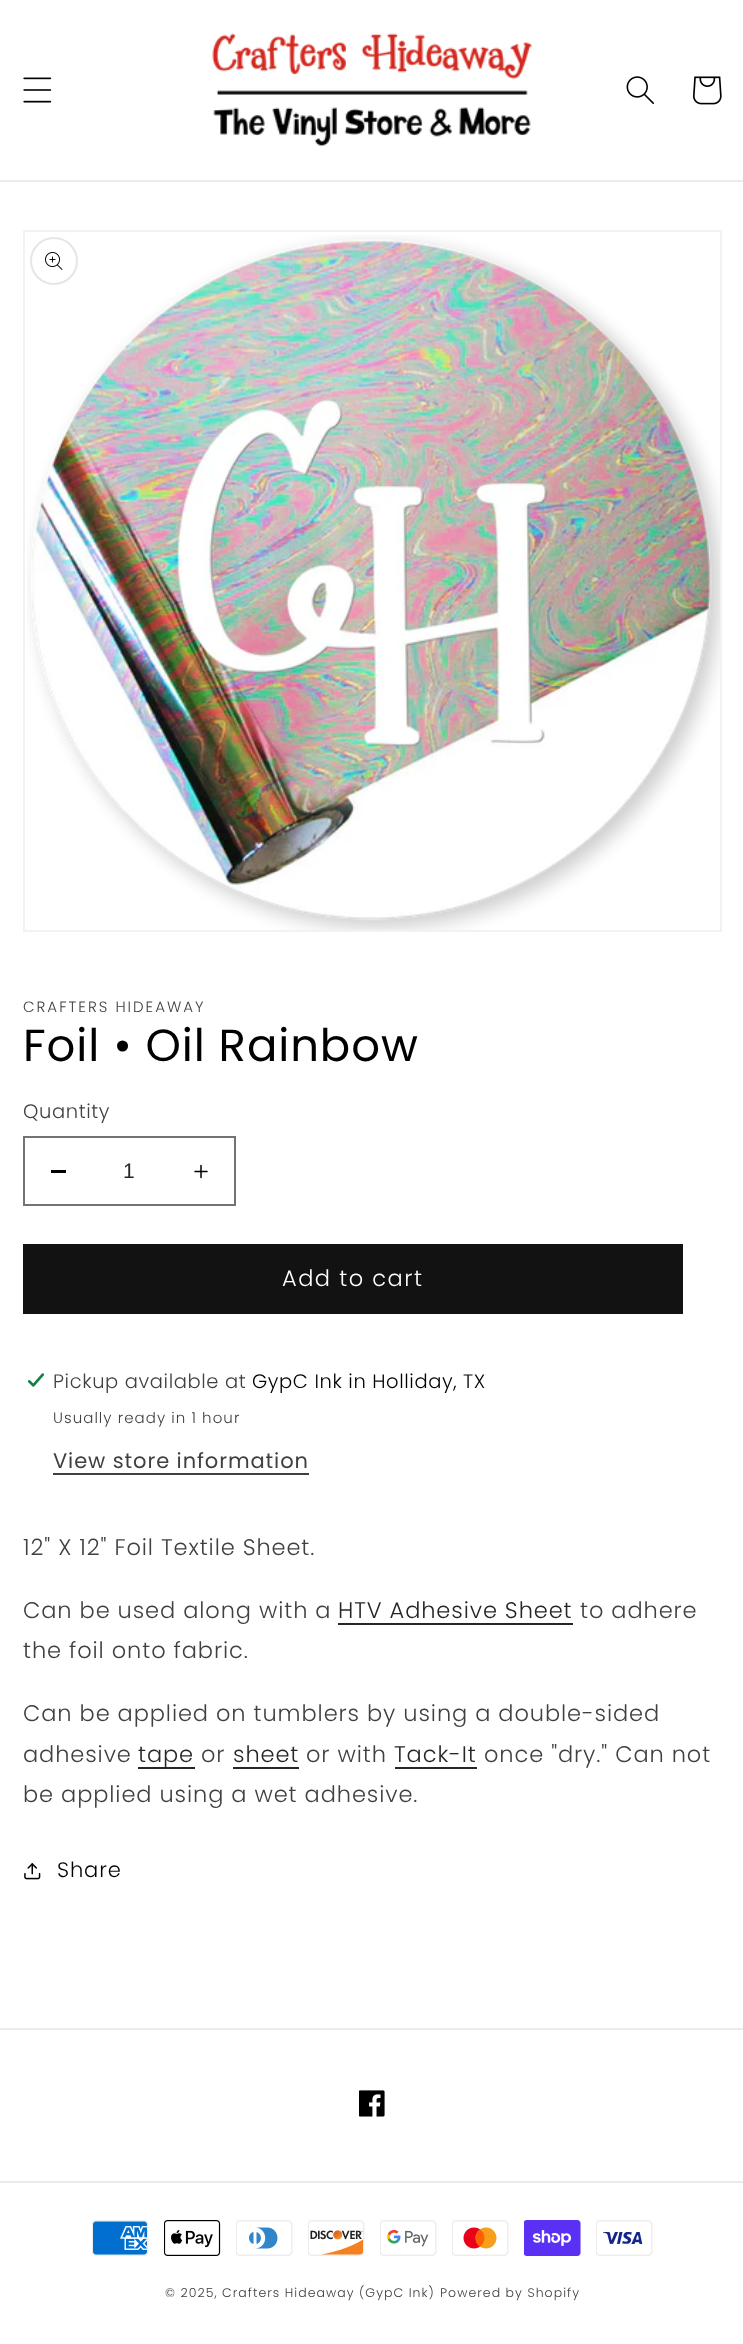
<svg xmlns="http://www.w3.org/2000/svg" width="743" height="2344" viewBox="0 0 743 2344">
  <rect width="100%" height="100%" fill="#fff"/>
  <path d="M0 180h743v2H0z" fill="#ebebeb"/>
  <image x="23" y="77" width="29" height="26" href="img/1.png"/>
  <image x="212" y="33" width="320" height="114" href="img/2.png"/>
  <image x="626" y="76" width="28" height="28" href="img/3.png"/>
  <image x="693" y="76" width="29" height="29" href="img/4.png"/>
  <path d="M24 231h697v700H24z" fill="none" stroke="#f2f2f2" stroke-width="2"/>
  <image x="27" y="235" width="693" height="695" href="img/5.png"/>
  <circle cx="54" cy="261" r="23" fill="none" stroke="#e6e6e6" stroke-width="2"/>
  <image x="45" y="252" width="18" height="18" href="img/6.png"/>
  <path d="M51 1170h15v3H51z" fill="#000"/>
  <image x="194" y="1164" width="14" height="15" href="img/7.png"/>
  <path d="M24 1137h211v68H24z" fill="none" stroke="#737373" stroke-width="2"/>
  <path d="M23 1244h660v70H23z" fill="#121212"/>
  <image x="27" y="1373" width="18" height="14" href="img/8.png"/>
  <path d="M53 1473h256v2H53z" fill="#404040"/>
  <path d="M338 1623h235v2H338z" fill="#262626"/>
  <path d="M138 1767h57v2H138z" fill="#262626"/>
  <path d="M233 1767h66v2H233z" fill="#262626"/>
  <path d="M395 1767h82v2H395z" fill="#262626"/>
  <image x="24" y="1863" width="17" height="17" href="img/9.png"/>
  <path d="M0 2028h743v2H0z" fill="#ebebeb"/>
  <image x="359" y="2090" width="26" height="27" href="img/10.png"/>
  <path d="M0 2181h743v2H0z" fill="#ebebeb"/>
  <image x="92" y="2220" width="57" height="36" href="img/11.png"/>
  <image x="164" y="2220" width="57" height="36" href="img/12.png"/>
  <image x="236" y="2220" width="57" height="36" href="img/13.png"/>
  <image x="308" y="2220" width="57" height="36" href="img/14.png"/>
  <image x="380" y="2220" width="57" height="36" href="img/15.png"/>
  <image x="452" y="2220" width="57" height="36" href="img/16.png"/>
  <image x="524" y="2220" width="57" height="36" href="img/17.png"/>
  <image x="596" y="2220" width="57" height="36" href="img/18.png"/>
  <text x="23" y="1012" font-family="Poppins" font-size="15" font-weight="300" letter-spacing="2" fill="#404040">CRAFTERS HIDEAWAY</text>
  <text x="23" y="1061" font-family="Poppins" font-size="45" letter-spacing="0.9" fill="#000">Foil • Oil Rainbow</text>
  <text x="23" y="1118" font-family="Poppins" font-size="19.5" font-weight="300" letter-spacing="0.6" fill="#404040">Quantity</text>
  <text x="123" y="1178" font-family="Liberation Sans" font-size="21" fill="#262626">1</text>
  <text x="282" y="1286" font-family="Poppins" font-size="22.5" font-weight="300" letter-spacing="1.5" fill="#fff">Add to cart</text>
  <text x="53" y="1388" font-family="Poppins" font-size="19.5" font-weight="300" letter-spacing="0.6" fill="#404040">Pickup available at</text>
  <text x="252" y="1388" font-family="Poppins" font-size="19.5" font-weight="300" letter-spacing="0.6" fill="#000">GypC Ink in Holliday, TX</text>
  <text x="53" y="1423" font-family="Poppins" font-size="15" font-weight="300" letter-spacing="1.05" fill="#404040">Usually ready in 1 hour</text>
  <text x="53" y="1468" font-family="Poppins" font-size="21" letter-spacing="0.9" fill="#404040">View store information</text>
  <g font-family="Poppins" font-size="22.5" font-weight="300" letter-spacing="0.9" fill="#404040">
    <text x="23" y="1555">12" X 12" Foil Textile Sheet.</text>
    <text x="23" y="1618">Can be used along with a</text>
  </g>
  <text x="338" y="1618" font-family="Poppins" font-size="22.5" font-weight="300" letter-spacing="0.9" fill="#262626">HTV Adhesive Sheet</text>
  <g font-family="Poppins" font-size="22.5" font-weight="300" letter-spacing="0.9" fill="#404040">
    <text x="580" y="1618">to adhere</text>
    <text x="23" y="1658">the foil onto fabric.</text>
    <text x="23" y="1721">Can be applied on tumblers by using a double-sided</text>
    <text x="23" y="1762">adhesive</text>
  </g>
  <text x="138" y="1762" font-family="Poppins" font-size="22.5" font-weight="300" letter-spacing="0.9" fill="#262626">tape</text>
  <text x="201" y="1762" font-family="Poppins" font-size="22.5" font-weight="300" letter-spacing="0.9" fill="#404040">or</text>
  <text x="233" y="1762" font-family="Poppins" font-size="22.5" font-weight="300" letter-spacing="0.9" fill="#262626">sheet</text>
  <text x="306" y="1762" font-family="Poppins" font-size="22.5" font-weight="300" letter-spacing="0.9" fill="#404040">or with</text>
  <text x="394" y="1762" font-family="Poppins" font-size="22.5" font-weight="300" letter-spacing="0.9" fill="#262626">Tack-It</text>
  <g font-family="Poppins" font-size="22.5" font-weight="300" letter-spacing="0.9" fill="#404040">
    <text x="484" y="1762">once "dry." Can not</text>
    <text x="23" y="1802">be applied using a wet adhesive.</text>
  </g>
  <text x="57" y="1877" font-family="Poppins" font-size="21" font-weight="300" letter-spacing="0.9" fill="#000">Share</text>
  <g font-family="Poppins" font-size="12.5" font-weight="300" letter-spacing="1.05" fill="#404040">
    <text x="165" y="2297">© 2025, Crafters Hideaway (GypC Ink)</text>
    <text x="440" y="2297">Powered by Shopify</text>
  </g>
</svg>
